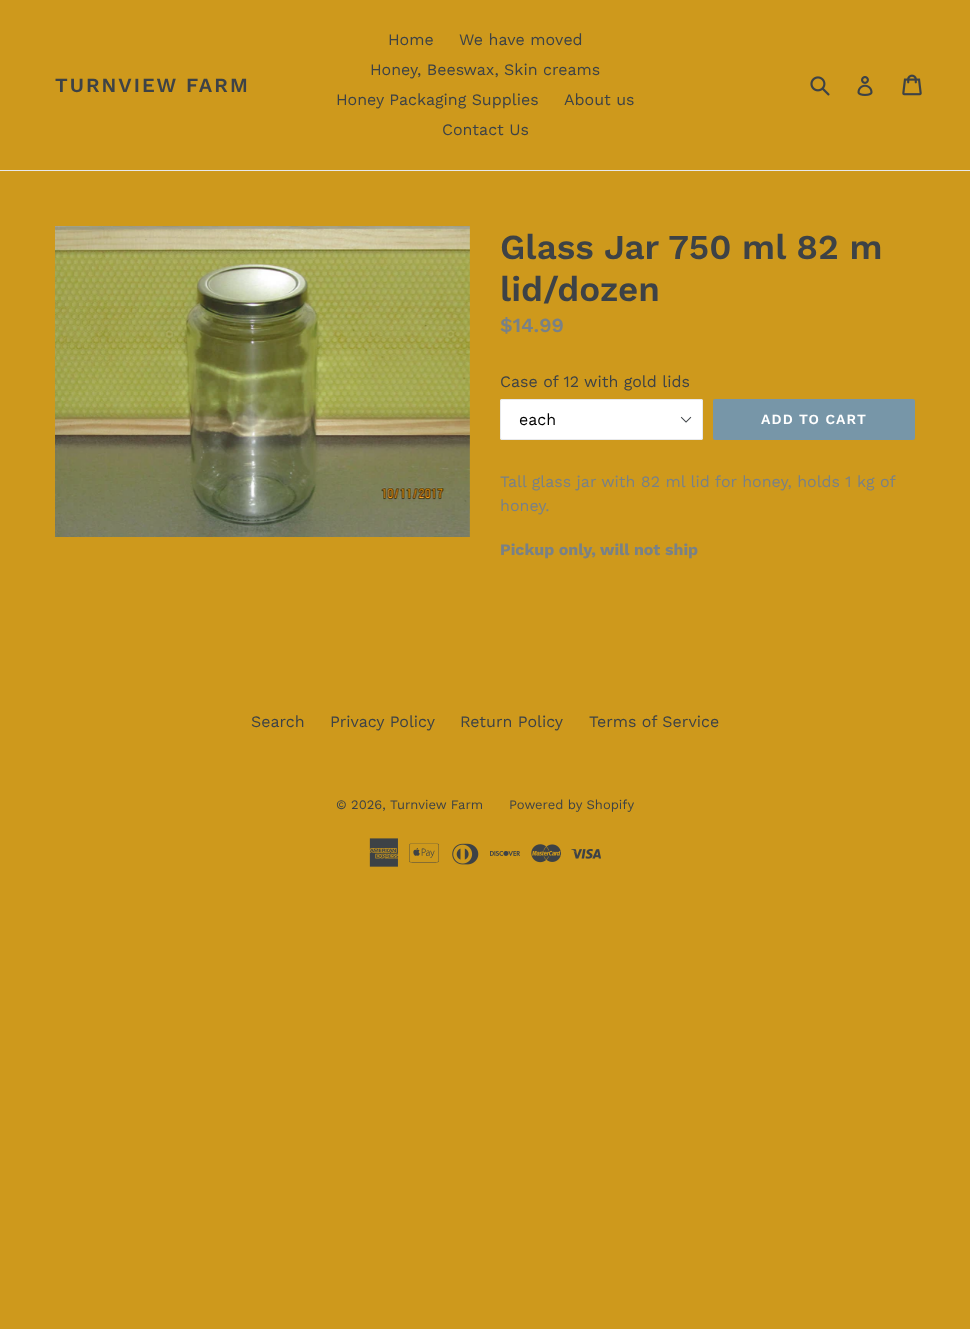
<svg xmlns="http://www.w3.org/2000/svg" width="970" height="1329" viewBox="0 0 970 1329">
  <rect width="100%" height="100%" fill="#ce991c"/>
  <path d="M0 170h970v1H0z" fill="#e8e9eb"/>
  <image x="810" y="76" width="20" height="20" href="img/1.png"/>
  <image x="857" y="76" width="16" height="20" href="img/2.png"/>
  <image x="902" y="74" width="20" height="22" href="img/3.png"/>
  <image x="55" y="226" width="415" height="311" href="img/4.png"/>
  <rect x="500" y="399" width="203" height="41" rx="2" fill="#fff"/>
  <image x="680" y="416" width="12" height="7" href="img/5.png"/>
  <rect x="500.5" y="399.5" width="202" height="40" rx="1.5" fill="none" stroke="#e8e9eb"/>
  <rect x="713" y="399" width="202" height="41" rx="2" fill="#7796a8"/>
  <image x="369" y="838" width="30" height="29" href="img/6.png"/>
  <image x="409" y="843" width="30" height="20" href="img/7.png"/>
  <image x="452" y="843" width="27" height="22" href="img/8.png"/>
  <image x="490" y="851" width="30" height="5" href="img/9.png"/>
  <image x="531" y="844" width="30" height="19" href="img/10.png"/>
  <image x="571" y="849" width="30" height="10" href="img/11.png"/>
  <text x="55" y="92" font-family="Work Sans" font-size="20" font-weight="600" letter-spacing="2" fill="#3d4246">TURNVIEW FARM</text>
  <g font-family="Work Sans" font-size="16" fill="#3d4246">
    <text x="388" y="45">Home</text>
    <text x="459" y="45">We have moved</text>
    <text x="370" y="75">Honey, Beeswax, Skin creams</text>
    <text x="336" y="105">Honey Packaging Supplies</text>
    <text x="564" y="105">About us</text>
    <text x="442" y="135">Contact Us</text>
  </g>
  <g font-family="Work Sans" font-size="35" font-weight="600" fill="#3d4246">
    <text x="500" y="259">Glass Jar 750 ml 82 m</text>
    <text x="500" y="301">lid/dozen</text>
  </g>
  <text x="500" y="332" font-family="Work Sans" font-size="20" font-weight="600" fill="#788188">$14.99</text>
  <text x="500" y="387" font-family="Work Sans" font-size="16" fill="#3d4246">Case of 12 with gold lids</text>
  <text x="519" y="425" font-family="Work Sans" font-size="16" fill="#000">each</text>
  <text x="761" y="424" font-family="Work Sans" font-size="14" font-weight="600" letter-spacing="1.1" fill="#fff">ADD TO CART</text>
  <g font-family="Work Sans" font-size="16" fill="#788188">
    <text x="500" y="487">Tall glass jar with 82 ml lid for honey, holds 1 kg of</text>
    <text x="500" y="511">honey.</text>
  </g>
  <text x="500" y="555" font-family="Work Sans" font-size="16" font-weight="bold" fill="#788188">Pickup only, will not ship</text>
  <g font-family="Work Sans" font-size="16" fill="#3d4246">
    <text x="251" y="727">Search</text>
    <text x="330" y="727">Privacy Policy</text>
    <text x="460" y="727">Return Policy</text>
    <text x="589" y="727">Terms of Service</text>
  </g>
  <g font-family="Work Sans" font-size="13" fill="#3d4246">
    <text x="336" y="809">© 2026,</text>
    <text x="390" y="809">Turnview Farm</text>
    <text x="509" y="809">Powered by Shopify</text>
  </g>
</svg>
